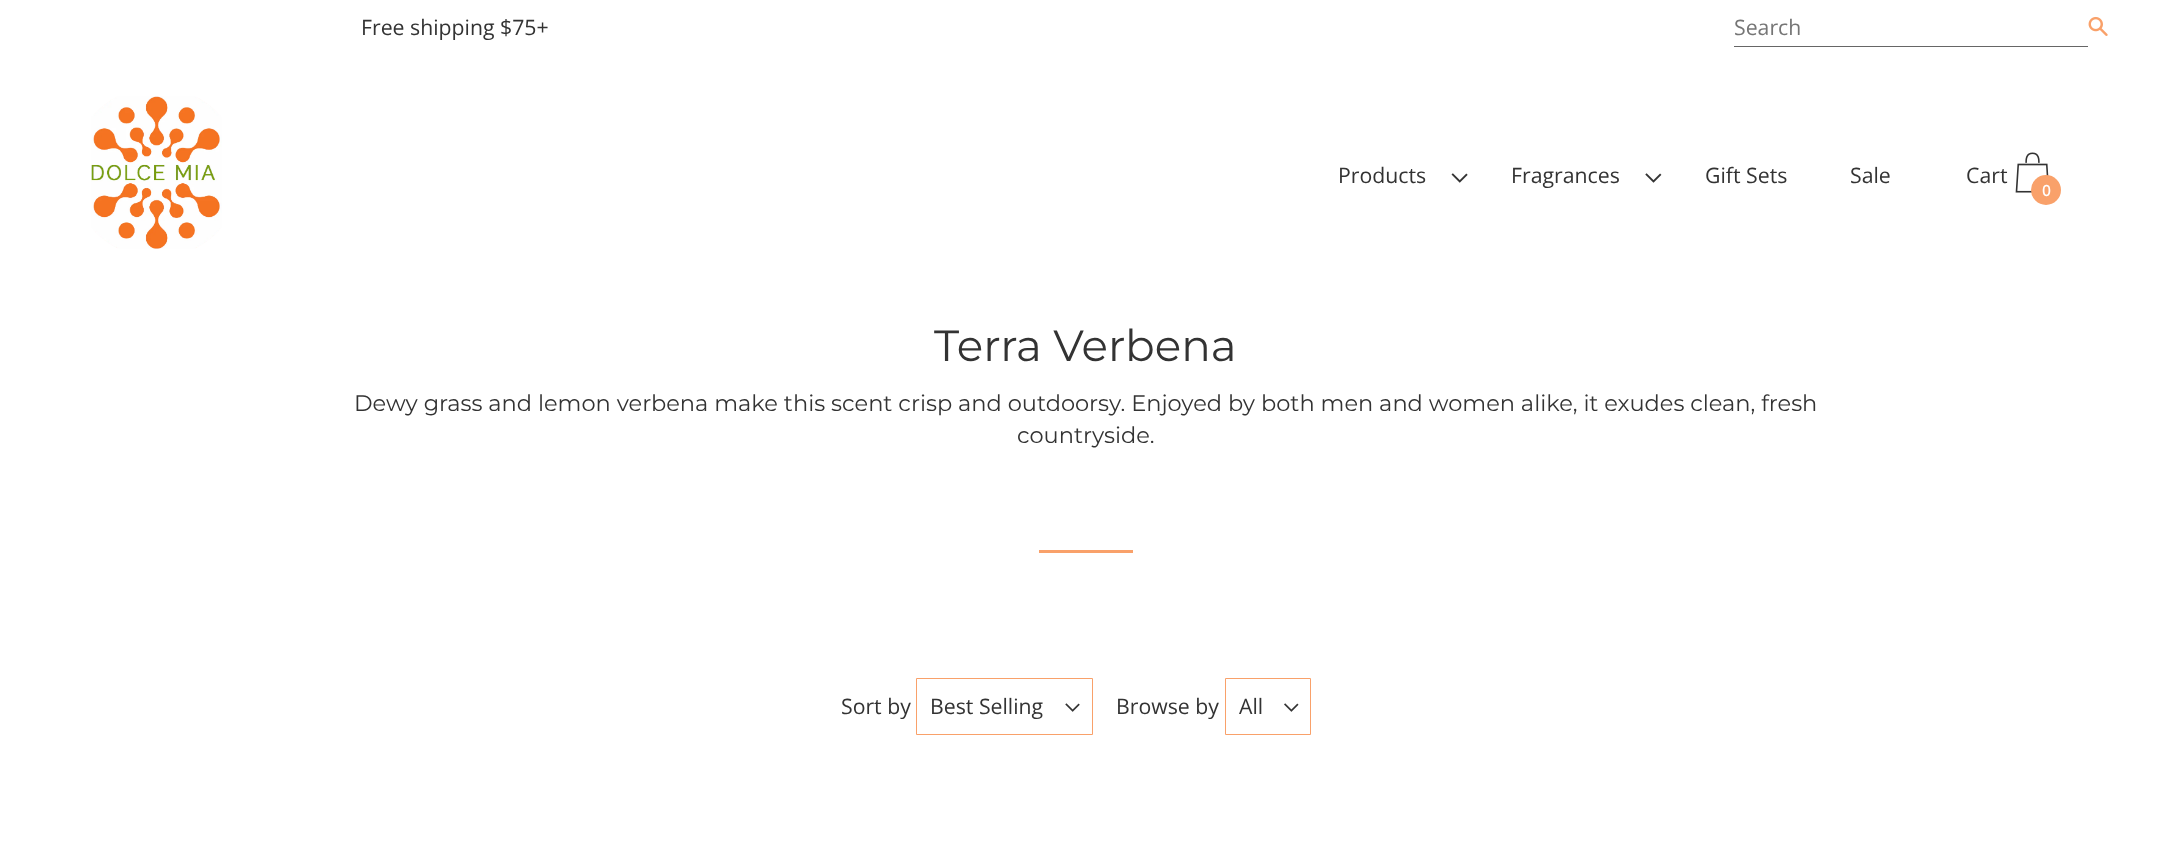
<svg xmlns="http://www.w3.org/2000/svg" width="2171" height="855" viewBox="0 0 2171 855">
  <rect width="100%" height="100%" fill="#fff"/>
  <path d="M1734 46h354v1H1734z" fill="#666"/>
  <image x="2088" y="16" width="20" height="20" href="img/1.png"/>
  <image x="91" y="96" width="131" height="153" href="img/2.png"/>
  <image x="1451" y="173" width="17" height="10" href="img/3.png"/>
  <image x="1645" y="173" width="17" height="10" href="img/4.png"/>
  <image x="2015" y="152" width="34" height="41" href="img/5.png"/>
  <circle cx="2046" cy="190" r="15" fill="#f9a16a"/>
  <path d="M1039 550h94v3H1039z" fill="#f9a16a"/>
  <image x="1065" y="703" width="15" height="9" href="img/6.png"/>
  <path d="M916.5 678.5h176v56H916.5z" fill="none" stroke="#f9a16a"/>
  <image x="1284" y="703" width="15" height="9" href="img/7.png"/>
  <path d="M1225.5 678.5h85v56H1225.5z" fill="none" stroke="#f9a16a"/>
  <text x="361" y="35" font-family="Open Sans" font-size="21.25" fill="#333">Free shipping $75+</text>
  <text x="1734" y="35" font-family="Open Sans" font-size="21.25" fill="#757575">Search</text>
  <g font-family="Open Sans" font-size="21.25" fill="#333">
    <text x="1338" y="183">Products</text>
    <text x="1511" y="183">Fragrances</text>
    <text x="1705" y="183">Gift Sets</text>
    <text x="1850" y="183">Sale</text>
    <text x="1966" y="183">Cart</text>
  </g>
  <text x="2042" y="196" font-family="Open Sans" font-size="15" font-weight="bold" fill="#fff">0</text>
  <text x="934" y="361" font-family="Montserrat" font-size="43.75" font-weight="100" fill="#333">Terra Verbena</text>
  <g font-family="Montserrat" font-size="22.5" font-weight="100" fill="#333">
    <text x="354" y="411">Dewy grass and lemon verbena make this scent crisp and outdoorsy. Enjoyed by both men and women alike, it exudes clean, fresh</text>
    <text x="1017" y="443">countryside.</text>
  </g>
  <g font-family="Open Sans" font-size="21.25" fill="#333">
    <text x="841" y="714">Sort by</text>
    <text x="930" y="714">Best Selling</text>
    <text x="1116" y="714">Browse by</text>
    <text x="1239" y="714">All</text>
  </g>
</svg>
